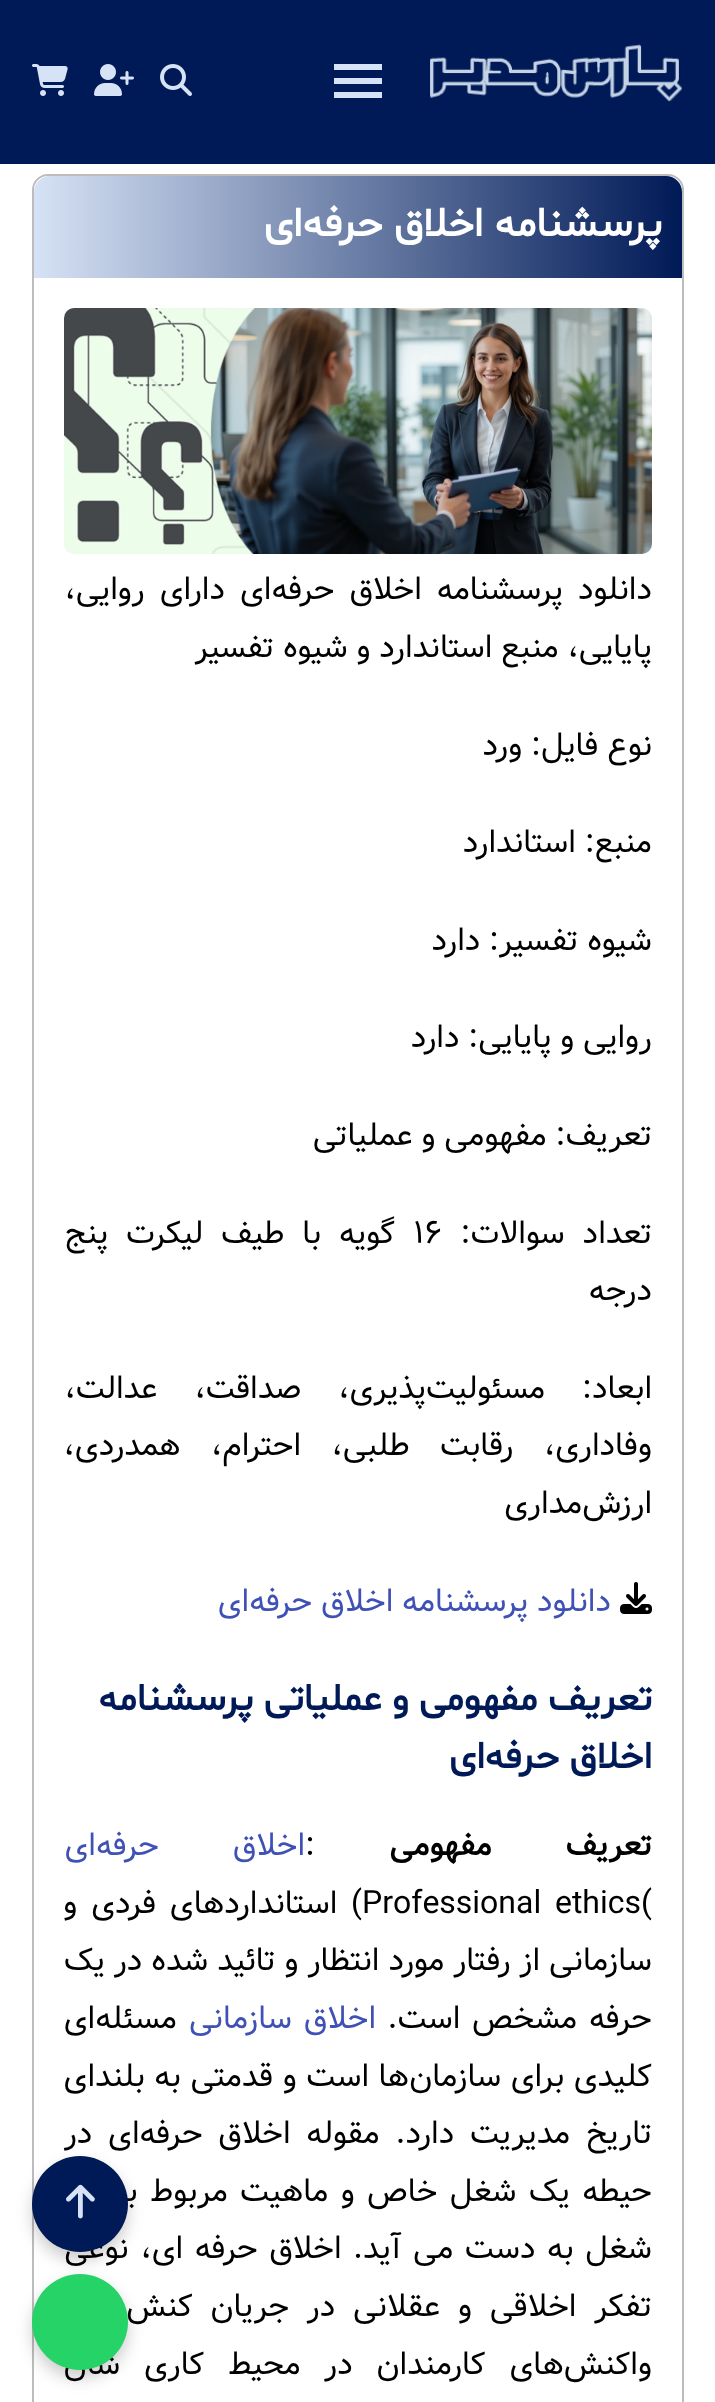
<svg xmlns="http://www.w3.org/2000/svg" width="715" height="2402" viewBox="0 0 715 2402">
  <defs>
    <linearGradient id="g1" gradientUnits="userSpaceOnUse" x1="682" y1="227" x2="34" y2="227"><stop offset="0" stop-color="#001a57"/><stop offset="1" stop-color="#d6e2f5"/></linearGradient>
  </defs>
  <rect width="100%" height="100%" fill="#fff"/>
  <path d="M0 0h715v164H0z" fill="#001a57"/>
  <image x="430" y="44" width="252" height="58" href="img/1.png"/>
  <path d="M334 64h48v6H334z" fill="#d6e2f5"/>
  <path d="M334 78h48v6H334z" fill="#d6e2f5"/>
  <path d="M334 92h48v6H334z" fill="#d6e2f5"/>
  <image x="160" y="64" width="32" height="32" href="img/2.png"/>
  <image x="94" y="64" width="40" height="32" href="img/3.png"/>
  <image x="32" y="64" width="36" height="32" href="img/4.png"/>
  <rect x="33" y="175" width="650" height="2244" rx="15" fill="none" stroke="#bdbdbd" stroke-width="2"/>
  <path d="M50 176H666C675 176 682 183 682 192V278H34V192C34 183 41 176 50 176Z" fill="url(#g1)"/>
  <image x="64" y="308" width="588" height="246" href="img/5.png"/>
  <image x="620" y="1582" width="32" height="32" href="img/6.png"/>
  <rect x="32" y="2164" width="96" height="96" rx="48" fill="#00000033" filter="blur(8px)"/>
  <rect x="32" y="2282" width="96" height="96" rx="48" fill="#00000033" filter="blur(8px)"/>
  <text x="662" y="236" font-family="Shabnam" font-size="41.5" font-weight="bold" direction="rtl" fill="#fff">پرسشنامه اخلاق حرفه‌ای</text>
  <g font-family="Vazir" font-size="32" direction="rtl" fill="#000">
    <text x="652" y="599" word-spacing="6.25">دانلود پرسشنامه اخلاق حرفه‌ای دارای روایی،</text>
    <text x="652" y="657">پایایی، منبع استاندارد و شیوه تفسیر</text>
    <text x="652" y="755">نوع فایل: ورد</text>
    <text x="652" y="852">منبع: استاندارد</text>
    <text x="652" y="950">شیوه تفسیر: دارد</text>
    <text x="652" y="1047">روایی و پایایی: دارد</text>
    <text x="652" y="1145">تعریف: مفهومی و عملیاتی</text>
    <text x="652" y="1243" word-spacing="9">تعداد سوالات:</text>
  </g>
  <text x="413" y="1243" font-family="Vazir" font-size="32" fill="#000">۱۶</text>
  <g font-family="Vazir" font-size="32" direction="rtl" fill="#000">
    <text x="395" y="1243" word-spacing="9">گویه با طیف لیکرت پنج</text>
    <text x="652" y="1300">درجه</text>
    <text x="652" y="1398" word-spacing="28">ابعاد: مسئولیت‌پذیری، صداقت، عدالت،</text>
    <text x="652" y="1455" word-spacing="21.5">وفاداری، رقابت طلبی، احترام، همدردی،</text>
    <text x="652" y="1513">ارزش‌مداری</text>
  </g>
  <text x="611" y="1611" font-family="Vazir" font-size="32" direction="rtl" fill="#3f51b5">دانلود پرسشنامه اخلاق حرفه‌ای</text>
  <g font-family="Shabnam" font-size="38.4" font-weight="bold" direction="rtl" fill="#001a57">
    <text x="652" y="1710">تعریف مفهومی و عملیاتی پرسشنامه</text>
    <text x="652" y="1768">اخلاق حرفه‌ای</text>
  </g>
  <text x="652" y="1855" word-spacing="65" font-family="Vazir" font-size="32" font-weight="bold" direction="rtl" fill="#000">تعریف مفهومی</text>
  <text x="305" y="1855" font-family="Vazir" font-size="32" fill="#000">:</text>
  <text x="305" y="1855" word-spacing="65" font-family="Vazir" font-size="32" direction="rtl" fill="#3f51b5">اخلاق حرفه‌ای</text>
  <g font-family="Vazir" font-size="32" fill="#000">
    <text x="641" y="1913">(</text>
    <text x="362" y="1913" word-spacing="5">Professional ethics</text>
  </g>
  <g font-family="Vazir" font-size="32" direction="rtl" fill="#000">
    <text x="362" y="1913" word-spacing="5">) استانداردهای فردی و</text>
    <text x="652" y="1970" word-spacing="0.25">سازمانی از رفتار مورد انتظار و تائید شده در یک</text>
    <text x="652" y="2028" word-spacing="3">حرفه مشخص است.</text>
  </g>
  <text x="376" y="2028" word-spacing="3" font-family="Vazir" font-size="32" direction="rtl" fill="#3f51b5">اخلاق سازمانی</text>
  <g font-family="Vazir" font-size="32" direction="rtl" fill="#000">
    <text x="177" y="2028">مسئله‌ای</text>
    <text x="652" y="2086" word-spacing="0.75">کلیدی برای سازمان‌ها است و قدمتی به بلندای</text>
    <text x="652" y="2143" word-spacing="7">تاریخ مدیریت دارد. مقوله اخلاق حرفه‌ای در</text>
    <text x="652" y="2201" word-spacing="3.5">حیطه یک شغل خاص و ماهیت مربوط به آن</text>
    <text x="652" y="2258" word-spacing="2.75">شغل به دست می آید. اخلاق حرفه ای، نوعی</text>
    <text x="652" y="2316" word-spacing="9">تفکر اخلاقی و عقلانی در جریان کنش‌ها و</text>
    <text x="652" y="2374" word-spacing="15">واکنش‌های کارمندان در محیط کاری شان</text>
  </g>
  <circle cx="80" cy="2204" r="48" fill="#001a57"/>
  <image x="66" y="2184" width="29" height="35" href="img/7.png"/>
  <circle cx="80" cy="2322" r="48" fill="#25d366"/>
</svg>
